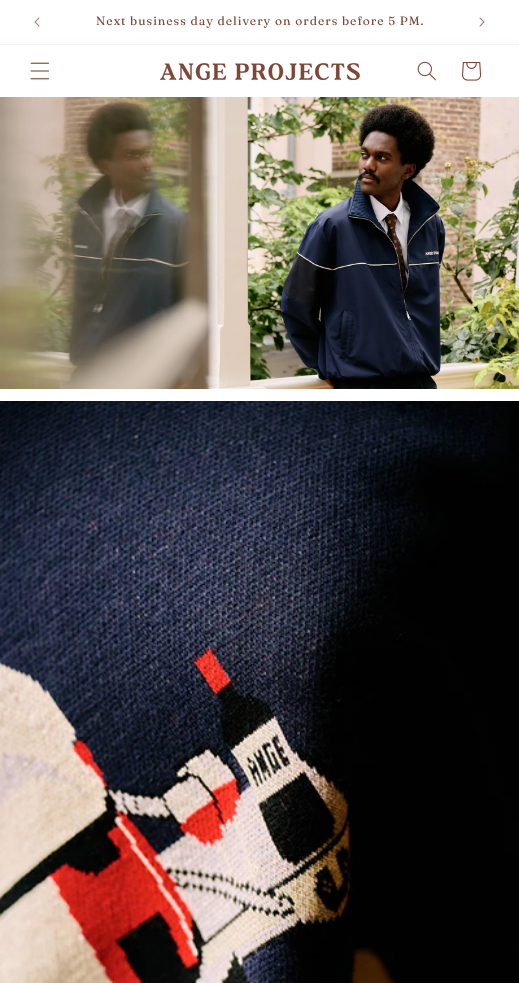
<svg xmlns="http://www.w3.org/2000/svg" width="519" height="983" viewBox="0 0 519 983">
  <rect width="100%" height="100%" fill="#fff"/>
  <path d="M0 44h519v1H0z" fill="#f5f0ef"/>
  <image x="34" y="17" width="6" height="10" href="img/1.png"/>
  <image x="479" y="17" width="6" height="10" href="img/2.png"/>
  <image x="30" y="62" width="20" height="18" href="img/3.png"/>
  <image x="160" y="63" width="200" height="17" href="img/4.png"/>
  <image x="417" y="61" width="19" height="20" href="img/5.png"/>
  <image x="462" y="62" width="20" height="19" href="img/6.png"/>
  <image x="0" y="97" width="519" height="292" href="img/7.png"/>
  <image x="0" y="401" width="519" height="582" href="img/8.png"/>
  <text x="96" y="25" font-family="Fraunces" font-size="12" letter-spacing="1" fill="#7f4536">Next business day delivery on orders before 5 PM.</text>
</svg>
